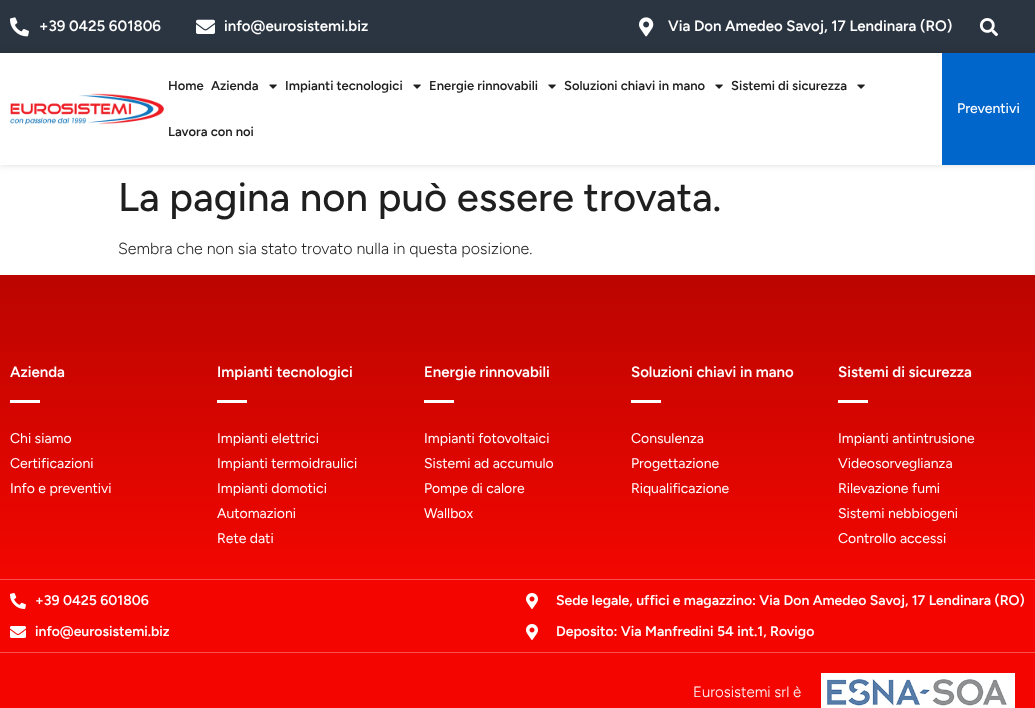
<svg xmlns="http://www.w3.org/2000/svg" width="1035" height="708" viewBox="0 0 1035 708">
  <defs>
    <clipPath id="clip1"><path d="M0 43H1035V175H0ZM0 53H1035V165H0Z" clip-rule="evenodd"/></clipPath>
    <linearGradient id="g1" gradientUnits="userSpaceOnUse" x1="518" y1="275" x2="518" y2="579"><stop offset="0" stop-color="#bb0500"/><stop offset="1" stop-color="#f30600"/></linearGradient>
  </defs>
  <rect width="100%" height="100%" fill="#fff"/>
  <path d="M0 0h1035v53H0z" fill="#2b3541"/>
  <image x="10" y="17" width="19" height="20" href="img/1.png"/>
  <image x="196" y="19" width="19" height="15" href="img/2.png"/>
  <image x="639" y="17" width="15" height="20" href="img/3.png"/>
  <image x="979" y="18" width="19" height="19" href="img/4.png"/>
  <g clip-path="url(#clip1)">
    <path d="M0 53h1035v112H0z" fill="#00000026" filter="blur(3px)"/>
  </g>
  <image x="10" y="93" width="154" height="32" href="img/5.png"/>
  <image x="269" y="84" width="8" height="5" href="img/6.png"/>
  <image x="413" y="84" width="8" height="5" href="img/6.png"/>
  <image x="548" y="84" width="8" height="5" href="img/6.png"/>
  <image x="715" y="84" width="8" height="5" href="img/6.png"/>
  <image x="857" y="84" width="8" height="5" href="img/6.png"/>
  <path d="M942 53h93v112H942z" fill="#0066cb"/>
  <path d="M0 275h1035v304H0z" fill="url(#g1)"/>
  <path d="M10 400h30v3H10z" fill="#fff"/>
  <path d="M217 400h30v3H217z" fill="#fff"/>
  <path d="M424 400h30v3H424z" fill="#fff"/>
  <path d="M631 400h30v3H631z" fill="#fff"/>
  <path d="M838 400h30v3H838z" fill="#fff"/>
  <path d="M0 580h1035v72H0z" fill="#f40500"/>
  <path d="M0 579h1035v1H0z" fill="#f7534f"/>
  <path d="M0 652h1035v1H0z" fill="#f7534f"/>
  <image x="10" y="593" width="16" height="16" href="img/7.png"/>
  <image x="10" y="626" width="16" height="12" href="img/8.png"/>
  <image x="526" y="593" width="12" height="16" href="img/9.png"/>
  <image x="526" y="624" width="12" height="16" href="img/9.png"/>
  <path d="M0 653h1035v55H0z" fill="#f40500"/>
  <image x="821" y="673" width="194" height="35" href="img/10.png"/>
  <g font-family="Figtree" font-size="15" font-weight="600" fill="#fff">
    <text x="39" y="31">+39 0425 601806</text>
    <text x="224" y="31">info@eurosistemi.biz</text>
    <text x="668" y="31">Via Don Amedeo Savoj, 17 Lendinara (RO)</text>
  </g>
  <g font-family="Figtree" font-size="13" font-weight="600" fill="#1f1f1f">
    <text x="168" y="90">Home</text>
    <text x="211" y="90">Azienda</text>
    <text x="285" y="90">Impianti tecnologici</text>
    <text x="429" y="90">Energie rinnovabili</text>
    <text x="564" y="90">Soluzioni chiavi in mano</text>
    <text x="731" y="90">Sistemi di sicurezza</text>
    <text x="168" y="136">Lavora con noi</text>
  </g>
  <text x="957" y="113" font-family="Figtree" font-size="14" font-weight="500" fill="#fff">Preventivi</text>
  <text x="118" y="211" font-family="Figtree" font-size="40" font-weight="500" fill="#1f1f1f">La pagina non può essere trovata.</text>
  <text x="118" y="254" font-family="Figtree" font-size="16" font-weight="300" fill="#1f1f1f">Sembra che non sia stato trovato nulla in questa posizione.</text>
  <text x="10" y="377" font-family="Figtree" font-size="15" font-weight="600" fill="#fff">Azienda</text>
  <g font-family="Figtree" font-size="14" fill="#fff">
    <text x="10" y="443">Chi siamo</text>
    <text x="10" y="468">Certificazioni</text>
    <text x="10" y="493">Info e preventivi</text>
  </g>
  <text x="217" y="377" font-family="Figtree" font-size="15" font-weight="600" fill="#fff">Impianti tecnologici</text>
  <g font-family="Figtree" font-size="14" fill="#fff">
    <text x="217" y="443">Impianti elettrici</text>
    <text x="217" y="468">Impianti termoidraulici</text>
    <text x="217" y="493">Impianti domotici</text>
    <text x="217" y="518">Automazioni</text>
    <text x="217" y="543">Rete dati</text>
  </g>
  <text x="424" y="377" font-family="Figtree" font-size="15" font-weight="600" fill="#fff">Energie rinnovabili</text>
  <g font-family="Figtree" font-size="14" fill="#fff">
    <text x="424" y="443">Impianti fotovoltaici</text>
    <text x="424" y="468">Sistemi ad accumulo</text>
    <text x="424" y="493">Pompe di calore</text>
    <text x="424" y="518">Wallbox</text>
  </g>
  <text x="631" y="377" font-family="Figtree" font-size="15" font-weight="600" fill="#fff">Soluzioni chiavi in mano</text>
  <g font-family="Figtree" font-size="14" fill="#fff">
    <text x="631" y="443">Consulenza</text>
    <text x="631" y="468">Progettazione</text>
    <text x="631" y="493">Riqualificazione</text>
  </g>
  <text x="838" y="377" font-family="Figtree" font-size="15" font-weight="600" fill="#fff">Sistemi di sicurezza</text>
  <g font-family="Figtree" font-size="14" fill="#fff">
    <text x="838" y="443">Impianti antintrusione</text>
    <text x="838" y="468">Videosorveglianza</text>
    <text x="838" y="493">Rilevazione fumi</text>
    <text x="838" y="518">Sistemi nebbiogeni</text>
    <text x="838" y="543">Controllo accessi</text>
  </g>
  <g font-family="Figtree" font-size="14" font-weight="600" fill="#fff">
    <text x="35" y="605">+39 0425 601806</text>
    <text x="35" y="636">info@eurosistemi.biz</text>
    <text x="556" y="605">Sede legale, uffici e magazzino: Via Don Amedeo Savoj, 17 Lendinara (RO)</text>
    <text x="556" y="636">Deposito: Via Manfredini 54 int.1, Rovigo</text>
  </g>
  <text x="693" y="697" font-family="Figtree" font-size="15" font-weight="300" fill="#fff">Eurosistemi srl è</text>
</svg>
